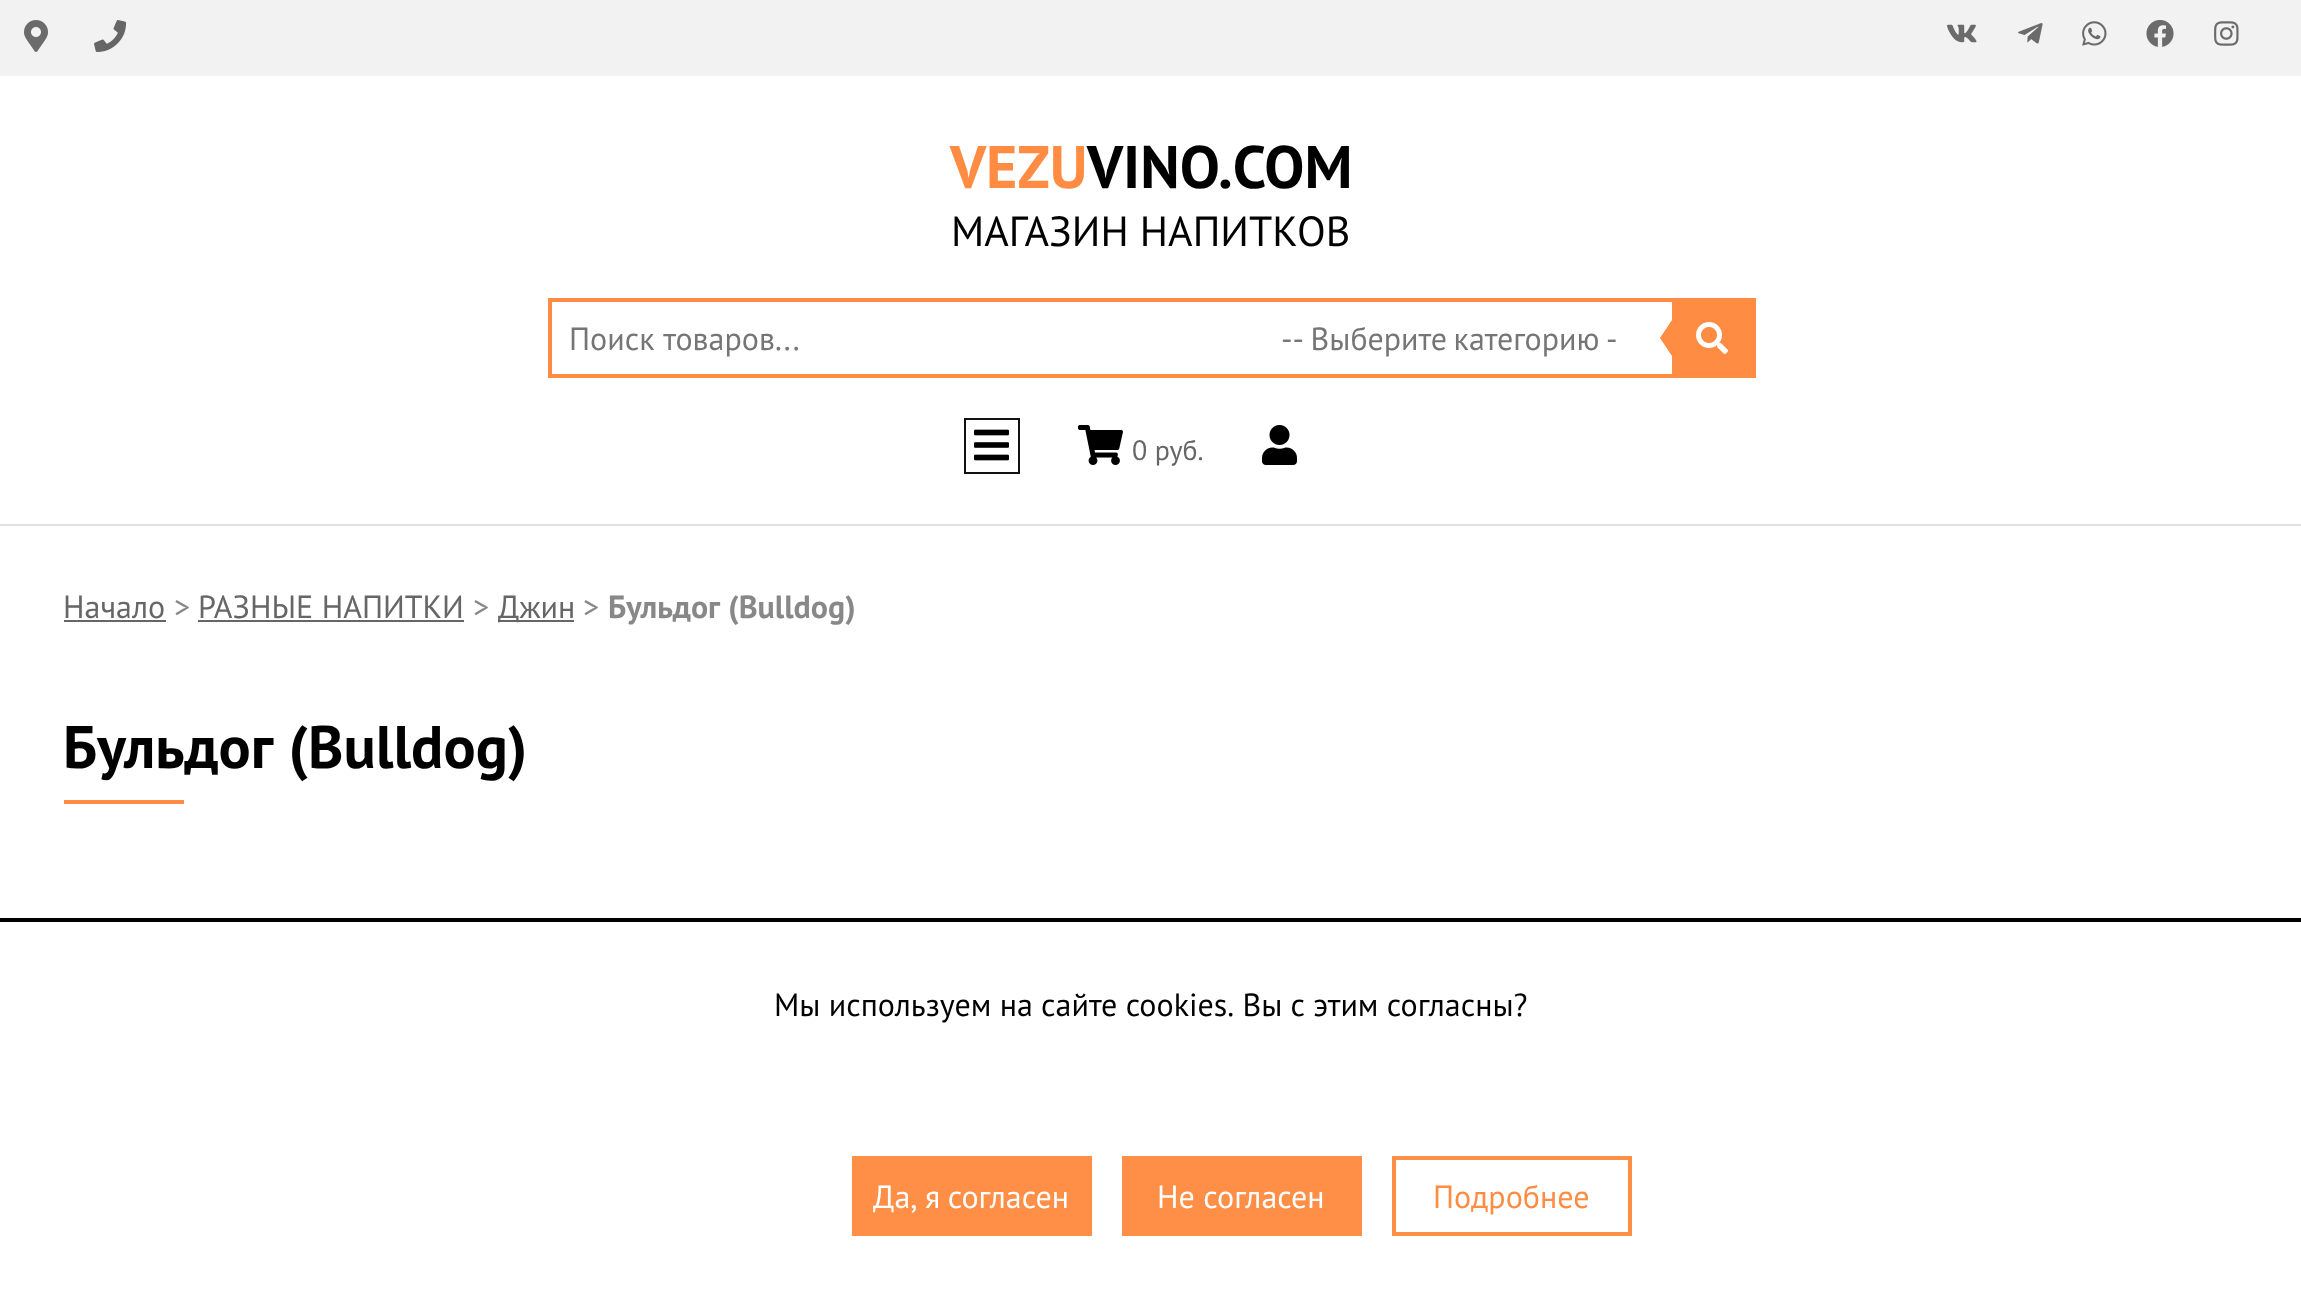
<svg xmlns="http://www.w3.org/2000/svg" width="2301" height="1306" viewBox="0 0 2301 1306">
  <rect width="100%" height="100%" fill="#fff"/>
  <path d="M0 0h2301v76H0z" fill="#f2f2f2"/>
  <image x="24" y="20" width="24" height="32" href="img/1.png"/>
  <image x="94" y="20" width="33" height="32" href="img/2.png"/>
  <image x="1947" y="24" width="30" height="19" href="img/3.png"/>
  <image x="2018" y="23" width="25" height="21" href="img/4.png"/>
  <image x="2082" y="21" width="25" height="25" href="img/5.png"/>
  <image x="2146" y="20" width="28" height="27" href="img/6.png"/>
  <image x="2214" y="21" width="25" height="25" href="img/7.png"/>
  <path d="M0 524h2301v2H0z" fill="#e0e0e0"/>
  <path d="M550 300h1204v76H550z" fill="none" stroke="#ff8c42" stroke-width="4"/>
  <path d="M1672 302h80v72H1672z" fill="#ff8c42"/>
  <path d="M1676 314V362L1660 338Z" fill="#ff8c42"/>
  <image x="1696" y="322" width="32" height="32" href="img/8.png"/>
  <path d="M965 419h54v54H965z" fill="none" stroke="#111" stroke-width="2"/>
  <image x="974" y="429" width="35" height="32" href="img/9.png"/>
  <image x="1078" y="425" width="45" height="40" href="img/10.png"/>
  <image x="1262" y="425" width="35" height="40" href="img/11.png"/>
  <path d="M64 620h102v2H64z" fill="#666"/>
  <path d="M198 620h266v2H198z" fill="#666"/>
  <path d="M498 620h76v2H498z" fill="#666"/>
  <path d="M64 800h120v4H64z" fill="#ff8c42"/>
  <path d="M0 918h2301v4H0z" fill="#000"/>
  <path d="M852 1156h240v80H852z" fill="#ff8e46"/>
  <path d="M1122 1156h240v80H1122z" fill="#ff8e46"/>
  <path d="M1394 1158h236v76H1394z" fill="none" stroke="#ff8e46" stroke-width="4"/>
  <text x="950" y="188" font-family="PT Sans" font-size="60" font-weight="bold" fill="#ff8c42">VEZU</text>
  <text x="1087" y="188" font-family="PT Sans" font-size="60" font-weight="bold" fill="#000">VINO.COM</text>
  <text x="951" y="246" font-family="PT Sans" font-size="42" fill="#000">МАГАЗИН НАПИТКОВ</text>
  <g font-family="PT Sans" font-size="32" fill="#757575">
    <text x="569" y="350" word-spacing="1">Поиск товаров...</text>
    <text x="1281" y="350" word-spacing="-2">-- Выберите категорию -</text>
  </g>
  <text x="1132" y="460" font-family="PT Sans" font-size="28" fill="#666">0 руб.</text>
  <text x="63" y="618" font-family="PT Sans" font-size="32" fill="#666">Начало</text>
  <text x="174" y="618" font-family="PT Sans" font-size="32" fill="#888">&gt;</text>
  <text x="198" y="618" font-family="PT Sans" font-size="32" fill="#666">РАЗНЫЕ НАПИТКИ</text>
  <text x="473" y="618" font-family="PT Sans" font-size="32" fill="#888">&gt;</text>
  <text x="498" y="618" font-family="PT Sans" font-size="32" fill="#666">Джин</text>
  <text x="583" y="618" font-family="PT Sans" font-size="32" fill="#888">&gt;</text>
  <text x="608" y="618" word-spacing="1" font-family="PT Sans" font-size="32" font-weight="bold" fill="#888">Бульдог (Bulldog)</text>
  <text x="63" y="768" word-spacing="2" font-family="PT Sans" font-size="60" font-weight="bold" fill="#000">Бульдог (Bulldog)</text>
  <text x="774" y="1016" word-spacing="-0.25" font-family="PT Sans" font-size="32" fill="#000">Мы используем на сайте cookies. Вы с этим согласны?</text>
  <g font-family="PT Sans" font-size="32" fill="#fff">
    <text x="873" y="1208" word-spacing="-1">Да, я согласен</text>
    <text x="1157" y="1208">Не согласен</text>
  </g>
  <text x="1433" y="1208" font-family="PT Sans" font-size="32" fill="#ff8c42">Подробнее</text>
</svg>
